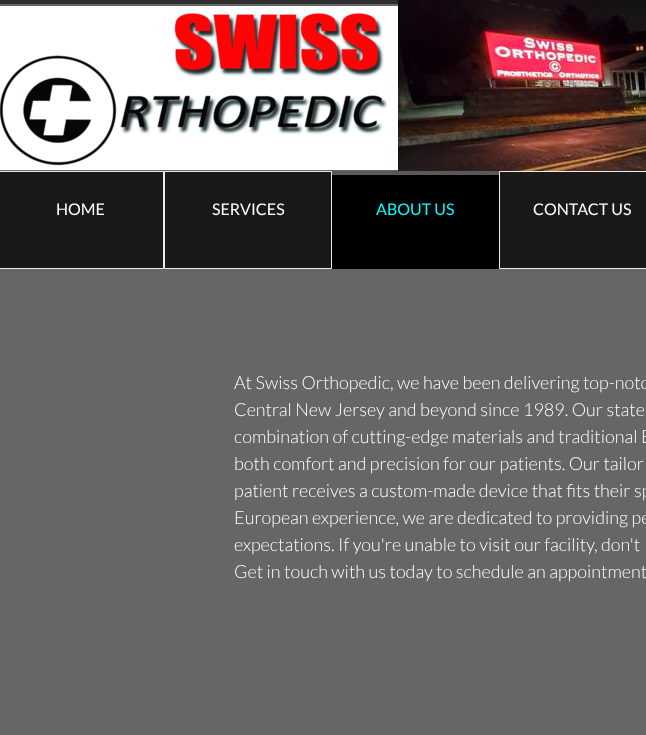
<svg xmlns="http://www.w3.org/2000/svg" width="646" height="735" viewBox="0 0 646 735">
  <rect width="100%" height="100%" fill="#666"/>
  <path d="M0 0h398v4H0z" fill="#2f2f2f"/>
  <image x="0" y="6" width="398" height="164" href="img/1.png"/>
  <image x="398" y="0" width="248" height="171" href="img/2.png"/>
  <path d="M-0.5 171.5h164v97H-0.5z" fill="#191919" stroke="#ebebeb"/>
  <path d="M164.5 171.5h167v97H164.5z" fill="#191919" stroke="#ebebeb"/>
  <path d="M332 175h167v94H332z" fill="#000"/>
  <path d="M332 171h167v4H332z" fill="#595959"/>
  <path d="M499.5 171.5h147v97H499.5z" fill="#191919" stroke="#ebebeb"/>
  <g font-family="Lato" font-size="16" fill="#fff">
    <text x="56" y="215">HOME</text>
    <text x="212" y="215">SERVICES</text>
  </g>
  <text x="376" y="215" font-family="Lato" font-size="16" fill="#0ff">ABOUT US</text>
  <text x="533" y="215" font-family="Lato" font-size="16" fill="#fff">CONTACT US</text>
  <g font-family="Lato" font-size="18" font-weight="300" fill="#fff">
    <text x="234" y="389">At Swiss Orthopedic, we have been delivering top-notc</text>
    <text x="234" y="416">Central New Jersey and beyond since 1989. Our state</text>
    <text x="234" y="443">combination of cutting-edge materials and traditional E</text>
    <text x="234" y="470">both comfort and precision for our patients. Our tailor</text>
    <text x="234" y="497">patient receives a custom-made device that fits their sp</text>
    <text x="234" y="524">European experience, we are dedicated to providing pe</text>
    <text x="234" y="551">expectations. If you're unable to visit our facility, don't</text>
    <text x="234" y="578">Get in touch with us today to schedule an appointment</text>
  </g>
</svg>
